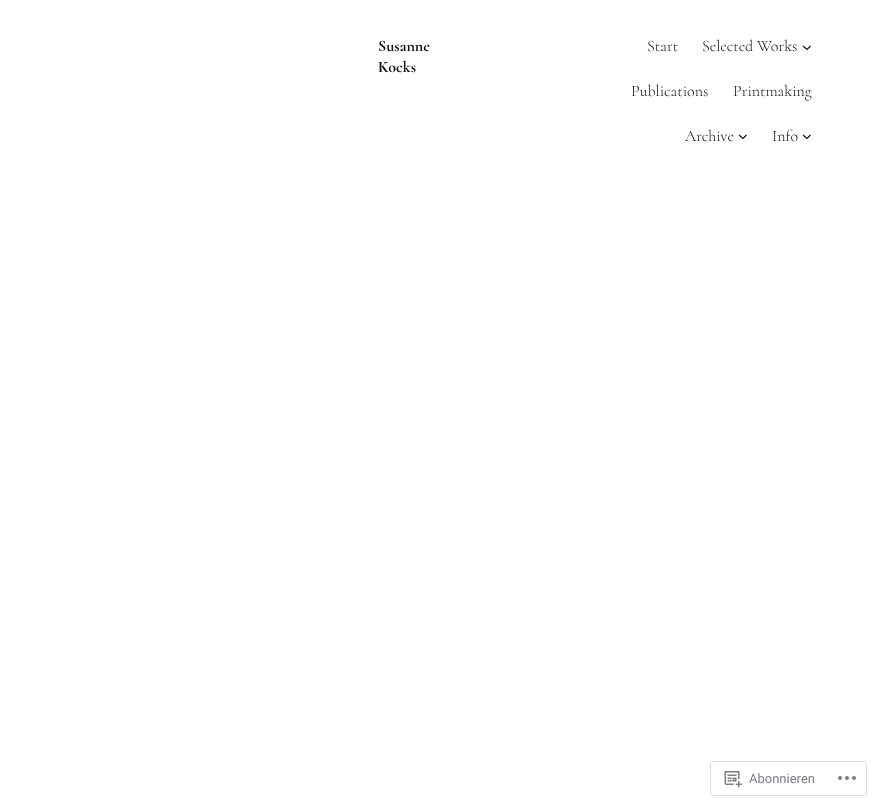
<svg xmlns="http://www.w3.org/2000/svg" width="877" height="806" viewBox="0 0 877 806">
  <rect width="100%" height="100%" fill="#fff"/>
  <path d="M803 46L807 49.5L810.5 46" fill="none" stroke="#111" stroke-width="1.2"/>
  <path d="M739 135L743 138.5L746.5 135" fill="none" stroke="#111" stroke-width="1.2"/>
  <path d="M803 135L807 138.5L810.5 135" fill="none" stroke="#111" stroke-width="1.2"/>
  <rect x="710.5" y="761.5" width="156" height="34" rx="2.5" fill="none" stroke="#dddddf"/>
  <image x="724" y="771" width="18" height="17" href="img/1.png"/>
  <image x="838" y="776" width="18" height="4" href="img/2.png"/>
  <g font-family="Cormorant" font-size="16" font-weight="bold" fill="#111">
    <text x="378" y="51">Susanne</text>
    <text x="378" y="72">Kocks</text>
  </g>
  <g font-family="Cormorant" font-size="16" font-weight="300" fill="#111">
    <text x="647" y="51">Start</text>
    <text x="702" y="51">Selected Works</text>
    <text x="631" y="96">Publications</text>
    <text x="733" y="96">Printmaking</text>
    <text x="685" y="141">Archive</text>
    <text x="772" y="141">Info</text>
  </g>
  <text x="749" y="783" font-family="Roboto" font-size="13" fill="#7b7f85">Abonnieren</text>
</svg>
